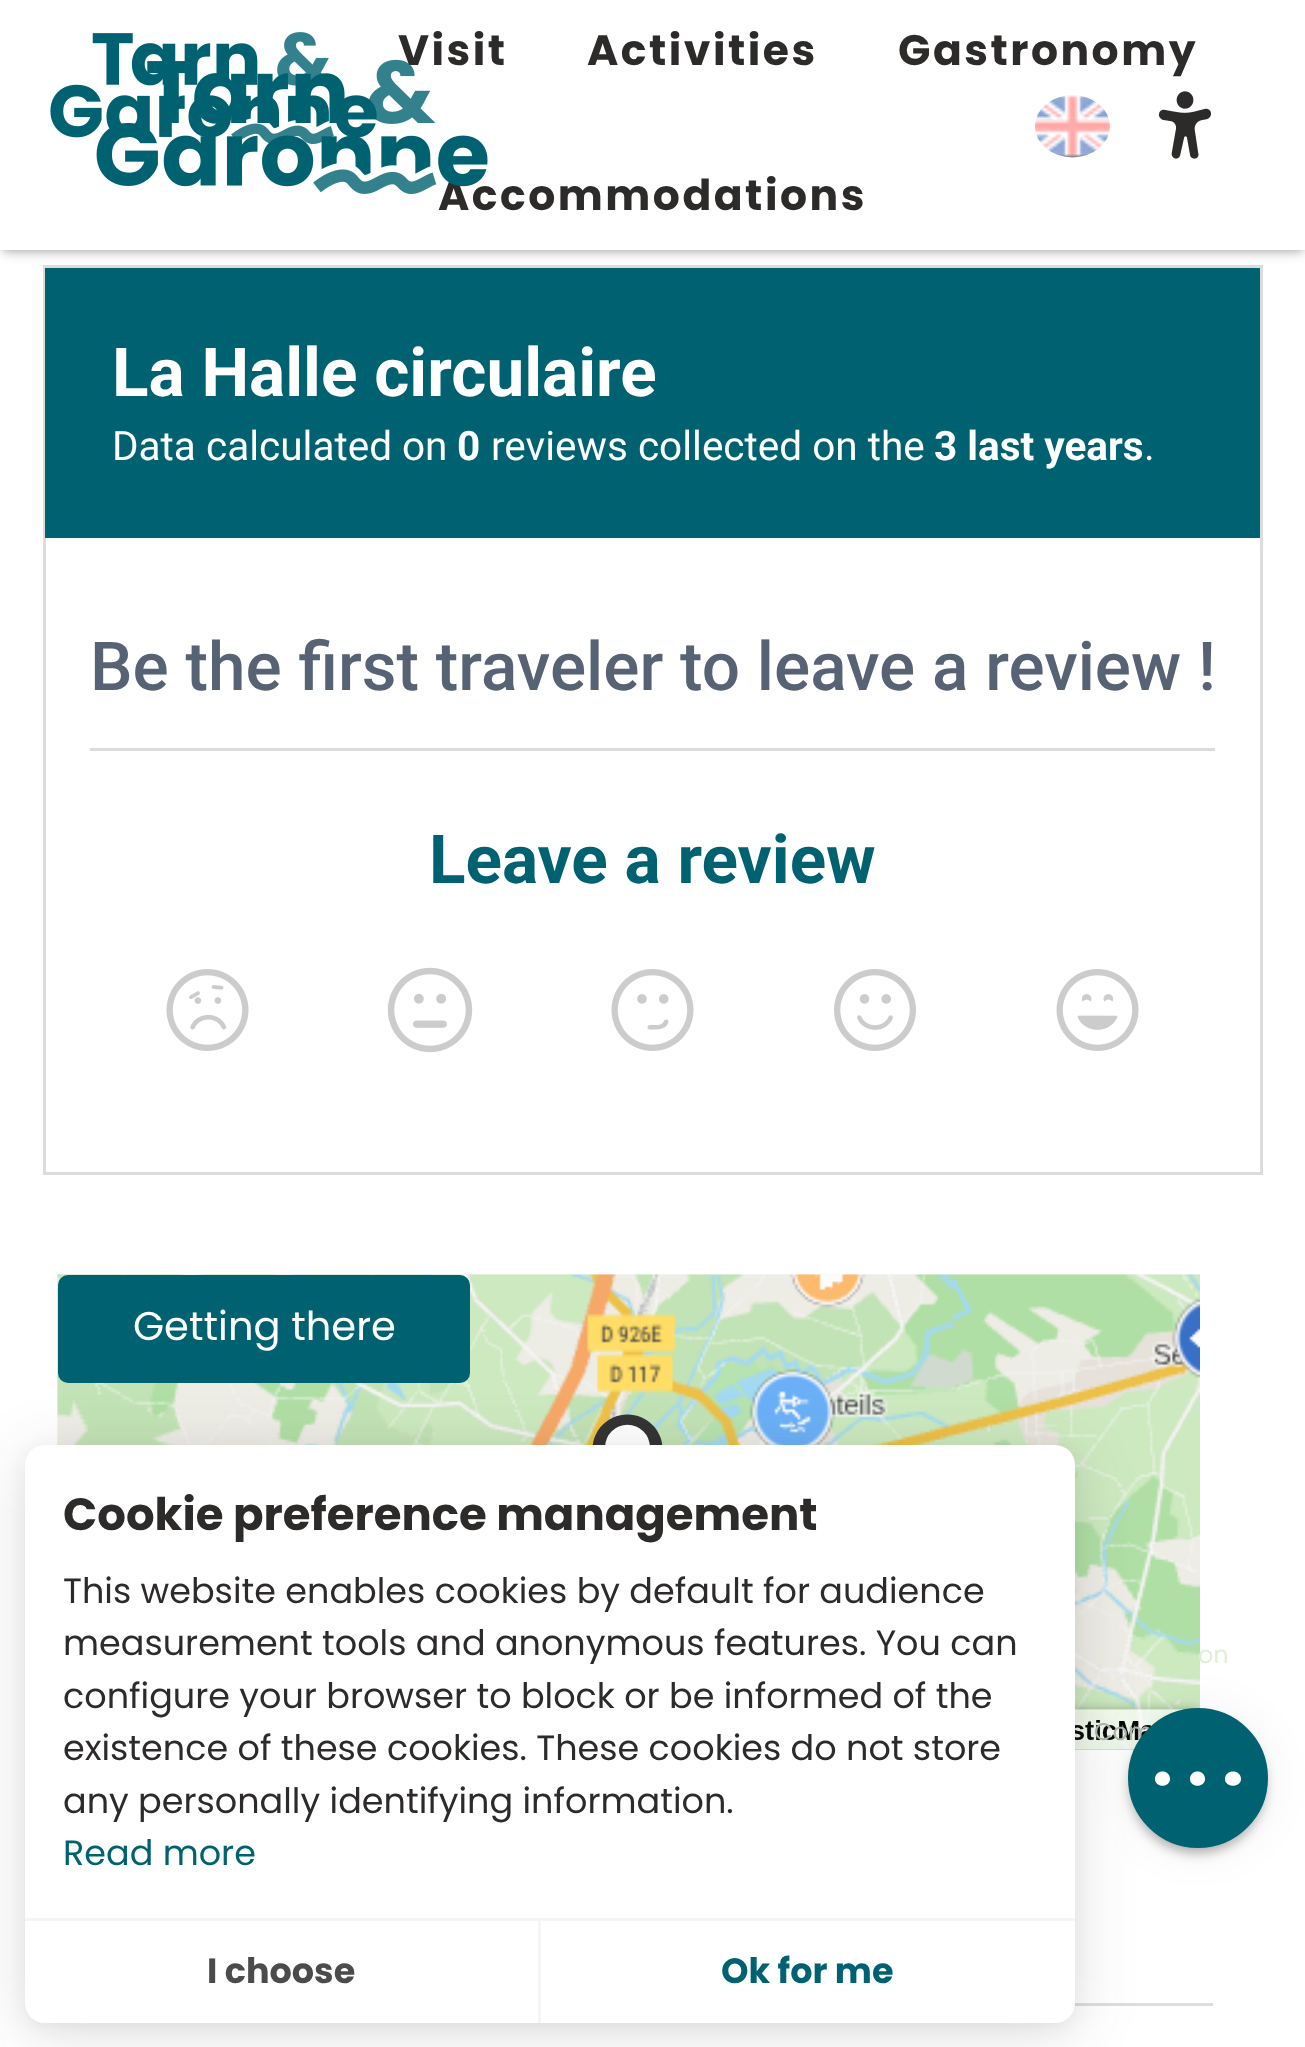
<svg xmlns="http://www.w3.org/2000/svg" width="1305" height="2047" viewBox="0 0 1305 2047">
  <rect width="100%" height="100%" fill="#fff"/>
  <path d="M3 5h1300v245H3z" fill="#4b4b4b4d" filter="blur(4px)"/>
  <path d="M44.5 266.5h1217v907H44.5z" fill="none" stroke="#dedbdb" stroke-width="3"/>
  <path d="M45 268h1215v270H45z" fill="#006271"/>
  <path d="M3 8h1300v245H3z" fill="#4b4b4b40" filter="blur(6px)"/>
  <path d="M0 0h1305v250H0z" fill="#fff"/>
  <image x="1035" y="95" width="75" height="63" href="img/2.png"/>
  <image x="1158" y="91" width="53" height="68" href="img/3.png"/>
  <path d="M90 748h1125v3H90z" fill="#dedbdb"/>
  <image x="166" y="969" width="83" height="82" href="img/5.png"/>
  <image x="387" y="967" width="86" height="86" href="img/6.png"/>
  <image x="611" y="969" width="83" height="82" href="img/7.png"/>
  <image x="834" y="969" width="82" height="82" href="img/8.png"/>
  <image x="1056" y="969" width="83" height="82" href="img/9.png"/>
  <image x="57" y="1274" width="1143" height="476" href="img/10.png"/>
  <rect x="58" y="1275" width="412" height="108" rx="10" fill="#006271"/>
  <path d="M1074 2003h139v3H1074z" fill="#ddd"/>
  <rect x="1130" y="1718" width="135" height="135" rx="67.5" fill="#0000004d" filter="blur(6px)"/>
  <rect x="1128" y="1710" width="140" height="140" rx="70" fill="#0000000f" filter="blur(22.5px)"/>
  <rect x="25" y="1450" width="1050" height="578" rx="20" fill="#2d2a2a0d" filter="blur(7.5px)"/>
  <g font-family="Poppins" font-size="42.5" font-weight="bold" letter-spacing="2.5" fill="#2d2a2a">
    <text x="398" y="65">Visit</text>
    <text x="587" y="65">Activities</text>
    <text x="898" y="65">Gastronomy</text>
    <text x="438" y="210">Accommodations</text>
  </g>
  <image x="96" y="59" width="392" height="135" href="img/1.png"/>
  <image x="50" y="32" width="327" height="112" href="img/4.png"/>
  <text x="112" y="396" font-family="Roboto" font-size="67.5" font-weight="bold" fill="#fff">La Halle circulaire</text>
  <text x="112" y="460" font-family="Roboto" font-size="40.5" fill="#fff">Data calculated on</text>
  <text x="457" y="460" font-family="Roboto" font-size="40.5" font-weight="bold" fill="#fff">0</text>
  <text x="491" y="460" font-family="Roboto" font-size="40.5" fill="#fff">reviews collected on the</text>
  <text x="934" y="460" font-family="Roboto" font-size="40.5" font-weight="bold" fill="#fff">3 last years</text>
  <text x="1144" y="460" font-family="Roboto" font-size="40.5" fill="#fff">.</text>
  <text x="90" y="690" font-family="Roboto" font-size="67.5" font-weight="500" fill="#576375">Be the first traveler to leave a review !</text>
  <text x="429" y="883" font-family="Roboto" font-size="67.5" font-weight="bold" fill="#006271">Leave a review</text>
  <text x="133" y="1340" font-family="Poppins" font-size="40" fill="#fff">Getting there</text>
  <text x="1198" y="1663" font-family="Poppins" font-size="24" fill="#e0eed8">on</text>
  <text x="1094" y="1740" font-family="Poppins" font-size="24" fill="#b0b4ae">Com</text>
  <circle cx="1198" cy="1778" r="68.5" fill="#006271" stroke="#006271" stroke-width="3"/>
  <path d="M1170 1779C1170 1788 1155 1788 1155 1779C1155 1769 1170 1769 1170 1779ZM1205 1779C1205 1788 1190 1788 1190 1779C1190 1769 1205 1769 1205 1779ZM1241 1779C1241 1788 1225 1788 1225 1779C1225 1769 1241 1769 1241 1779Z" fill="#fff"/>
  <rect x="25" y="1455" width="1050" height="578" rx="20" fill="#2d2a2a26" filter="blur(30px)"/>
  <rect x="25" y="1445" width="1050" height="578" rx="20" fill="#fff"/>
  <text x="63" y="1530" font-family="Poppins" font-size="45" font-weight="bold" fill="#2d2a2a">Cookie preference management</text>
  <g font-family="Poppins" font-size="35" fill="#2d2a2a">
    <text x="63" y="1603">This website enables cookies by default for audience</text>
    <text x="63" y="1655">measurement tools and anonymous features. You can</text>
    <text x="63" y="1708">configure your browser to block or be informed of the</text>
    <text x="63" y="1760">existence of these cookies. These cookies do not store</text>
    <text x="63" y="1813">any personally identifying information.</text>
  </g>
  <text x="63" y="1865" font-family="Poppins" font-size="35" fill="#006271">Read more</text>
  <path d="M25 1918h1050v3H25z" fill="#f5f5f5"/>
  <path d="M538 1920h3v103H538z" fill="#f5f5f5"/>
  <text x="207" y="1983" font-family="Poppins" font-size="35" font-weight="bold" fill="#4b4b4b">I choose</text>
  <text x="721" y="1983" font-family="Poppins" font-size="35" font-weight="bold" fill="#006271">Ok for me</text>
</svg>
